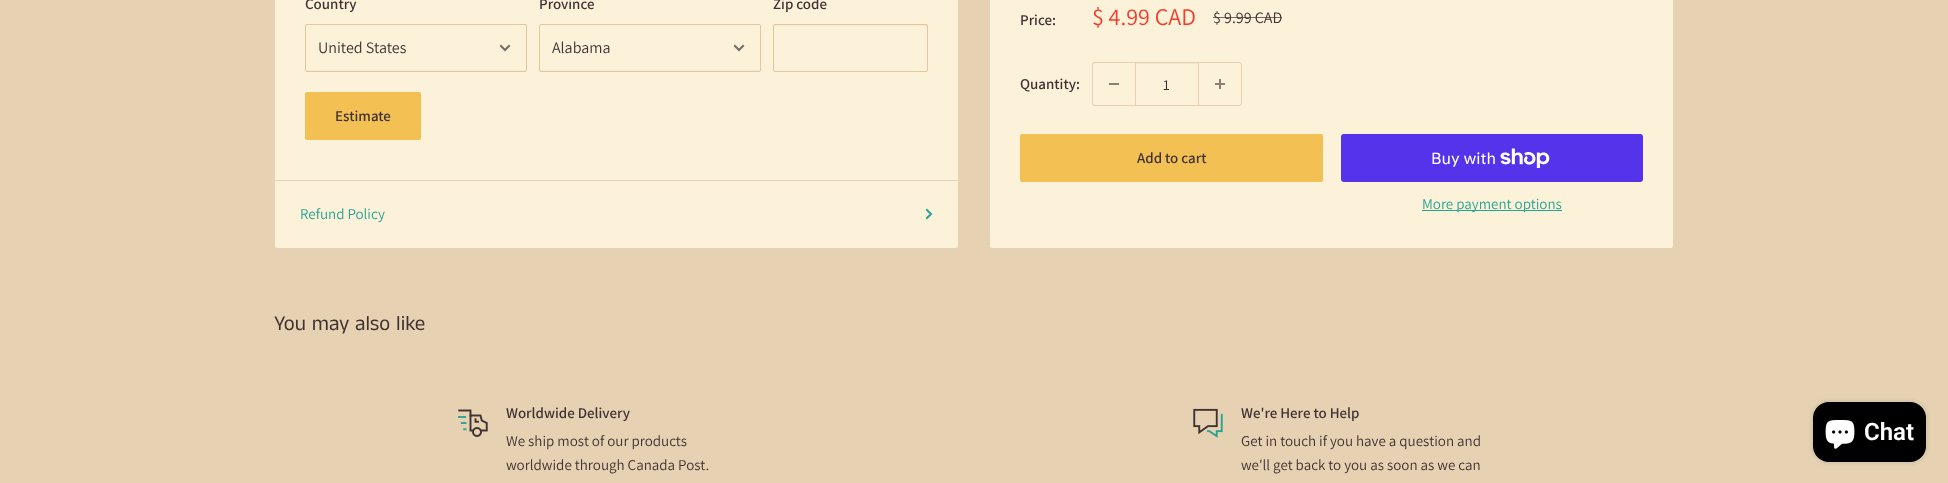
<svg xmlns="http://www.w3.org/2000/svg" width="1948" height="483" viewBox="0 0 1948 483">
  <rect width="100%" height="100%" fill="#e6d2b2"/>
  <rect x="274.5" y="-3.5" width="684" height="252" rx="2.5" fill="#fcf1d9" stroke="#e6d2b2"/>
  <path d="M306 69V71H525C526 71 526 70 526 69C526 70 526 70 525 70H306Z" fill="#f5e8cd"/>
  <rect x="305.5" y="24.5" width="221" height="47" rx="1.5" fill="none" stroke="#e0c79f"/>
  <path d="M509 46L505 50L501 46" fill="none" stroke="#786b65" stroke-width="2" stroke-linecap="square"/>
  <path d="M540 69V71H759C760 71 760 70 760 69C760 70 760 70 759 70H540Z" fill="#f5e8cd"/>
  <rect x="539.5" y="24.5" width="221" height="47" rx="1.5" fill="none" stroke="#e0c79f"/>
  <path d="M743 46L739 50L735 46" fill="none" stroke="#786b65" stroke-width="2" stroke-linecap="square"/>
  <path d="M775 26H926C927 26 927 26 927 27V25H775C774 25 774 26 774 27C774 26 774 26 775 26Z" fill="#f7e9cf"/>
  <rect x="773.5" y="24.5" width="154" height="47" rx="1.5" fill="none" stroke="#e0c79f"/>
  <rect x="305" y="92" width="116" height="48" rx="2" fill="#f3c053"/>
  <path d="M275 180h683v1H275z" fill="#e6d2b2"/>
  <path d="M927 210L931 214L927 218" fill="none" stroke="#28a494" stroke-width="2" stroke-linecap="square"/>
  <rect x="989.5" y="-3.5" width="684" height="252" rx="2.5" fill="#fcf1d9" stroke="#e6d2b2"/>
  <rect x="1092.5" y="62.5" width="149" height="43" rx="2.5" fill="none" stroke="#e6d2b2"/>
  <path d="M1109 83h10v2H1109z" fill="#8b7e75"/>
  <path d="M1136 63h62v1H1136z" fill="#f3e5c9"/>
  <path d="M1198 63h1v42H1198z" fill="#e6d2b2"/>
  <path d="M1135 63h1v42H1135z" fill="#e6d2b2"/>
  <image x="1215" y="79" width="10" height="10" href="img/1.png"/>
  <rect x="1020" y="134" width="303" height="48" rx="2" fill="#f3c053"/>
  <rect x="1341" y="134" width="302" height="48" rx="3" fill="#5433eb"/>
  <image x="1500" y="148" width="50" height="20" href="img/2.png"/>
  <path d="M1422 210h140v1H1422z" fill="#28a494"/>
  <image x="458" y="409" width="30" height="28" href="img/3.png"/>
  <image x="1193" y="408" width="30" height="30" href="img/4.png"/>
  <rect x="1813" y="402" width="113" height="60" rx="16" fill="#00000026" filter="blur(2.5px)"/>
  <rect x="1813" y="402" width="113" height="60" rx="16" fill="#000"/>
  <image x="1825" y="420" width="30" height="29" href="img/5.png"/>
  <text x="305" y="9" font-family="Assistant" font-size="15" font-weight="600" fill="#403233">Country</text>
  <text x="318" y="53" font-family="Assistant" font-size="16" fill="#403233">United States</text>
  <text x="539" y="9" font-family="Assistant" font-size="15" font-weight="600" fill="#403233">Province</text>
  <text x="552" y="53" font-family="Assistant" font-size="16" fill="#403233">Alabama</text>
  <g font-family="Assistant" font-size="15" font-weight="600" fill="#403233">
    <text x="773" y="9">Zip code</text>
    <text x="335" y="121">Estimate</text>
  </g>
  <text x="300" y="219" font-family="Assistant" font-size="15" fill="#28a494">Refund Policy</text>
  <text x="1020" y="25" font-family="Assistant" font-size="15" font-weight="600" fill="#403233">Price:</text>
  <text x="1092" y="25" font-family="Assistant" font-size="24" fill="#f23d2c">$ 4.99 CAD</text>
  <text x="1213" y="23" font-family="Assistant" font-size="16" fill="#403233">$ 9.99 CAD</text>
  <path d="M1213 17h69v1H1213z" fill="#403233b3"/>
  <text x="1020" y="89" font-family="Assistant" font-size="15" font-weight="600" fill="#403233">Quantity:</text>
  <text x="1163" y="90" font-family="Assistant" font-size="15" fill="#403233">1</text>
  <text x="1137" y="163" font-family="Assistant" font-size="15" font-weight="600" fill="#403233">Add to cart</text>
  <text x="1431" y="164" font-family="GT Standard" font-size="16" fill="#fff">Buy with</text>
  <text x="1422" y="209" font-family="Assistant" font-size="15" fill="#28a494">More payment options</text>
  <text x="274" y="330" font-family="Anek Tamil" font-size="21" fill="#403233">You may also like</text>
  <text x="506" y="418" font-family="Assistant" font-size="15" font-weight="600" fill="#403233">Worldwide Delivery</text>
  <g font-family="Assistant" font-size="15" fill="#403233">
    <text x="506" y="446">We ship most of our products</text>
    <text x="506" y="470">worldwide through Canada Post.</text>
  </g>
  <text x="1241" y="418" font-family="Assistant" font-size="15" font-weight="600" fill="#403233">We're Here to Help</text>
  <g font-family="Assistant" font-size="15" fill="#403233">
    <text x="1241" y="446">Get in touch if you have a question and</text>
    <text x="1241" y="470">we'll get back to you as soon as we can</text>
  </g>
  <text x="1864" y="440" font-family="Roboto" font-size="24" font-weight="600" fill="#fff">Chat</text>
</svg>
